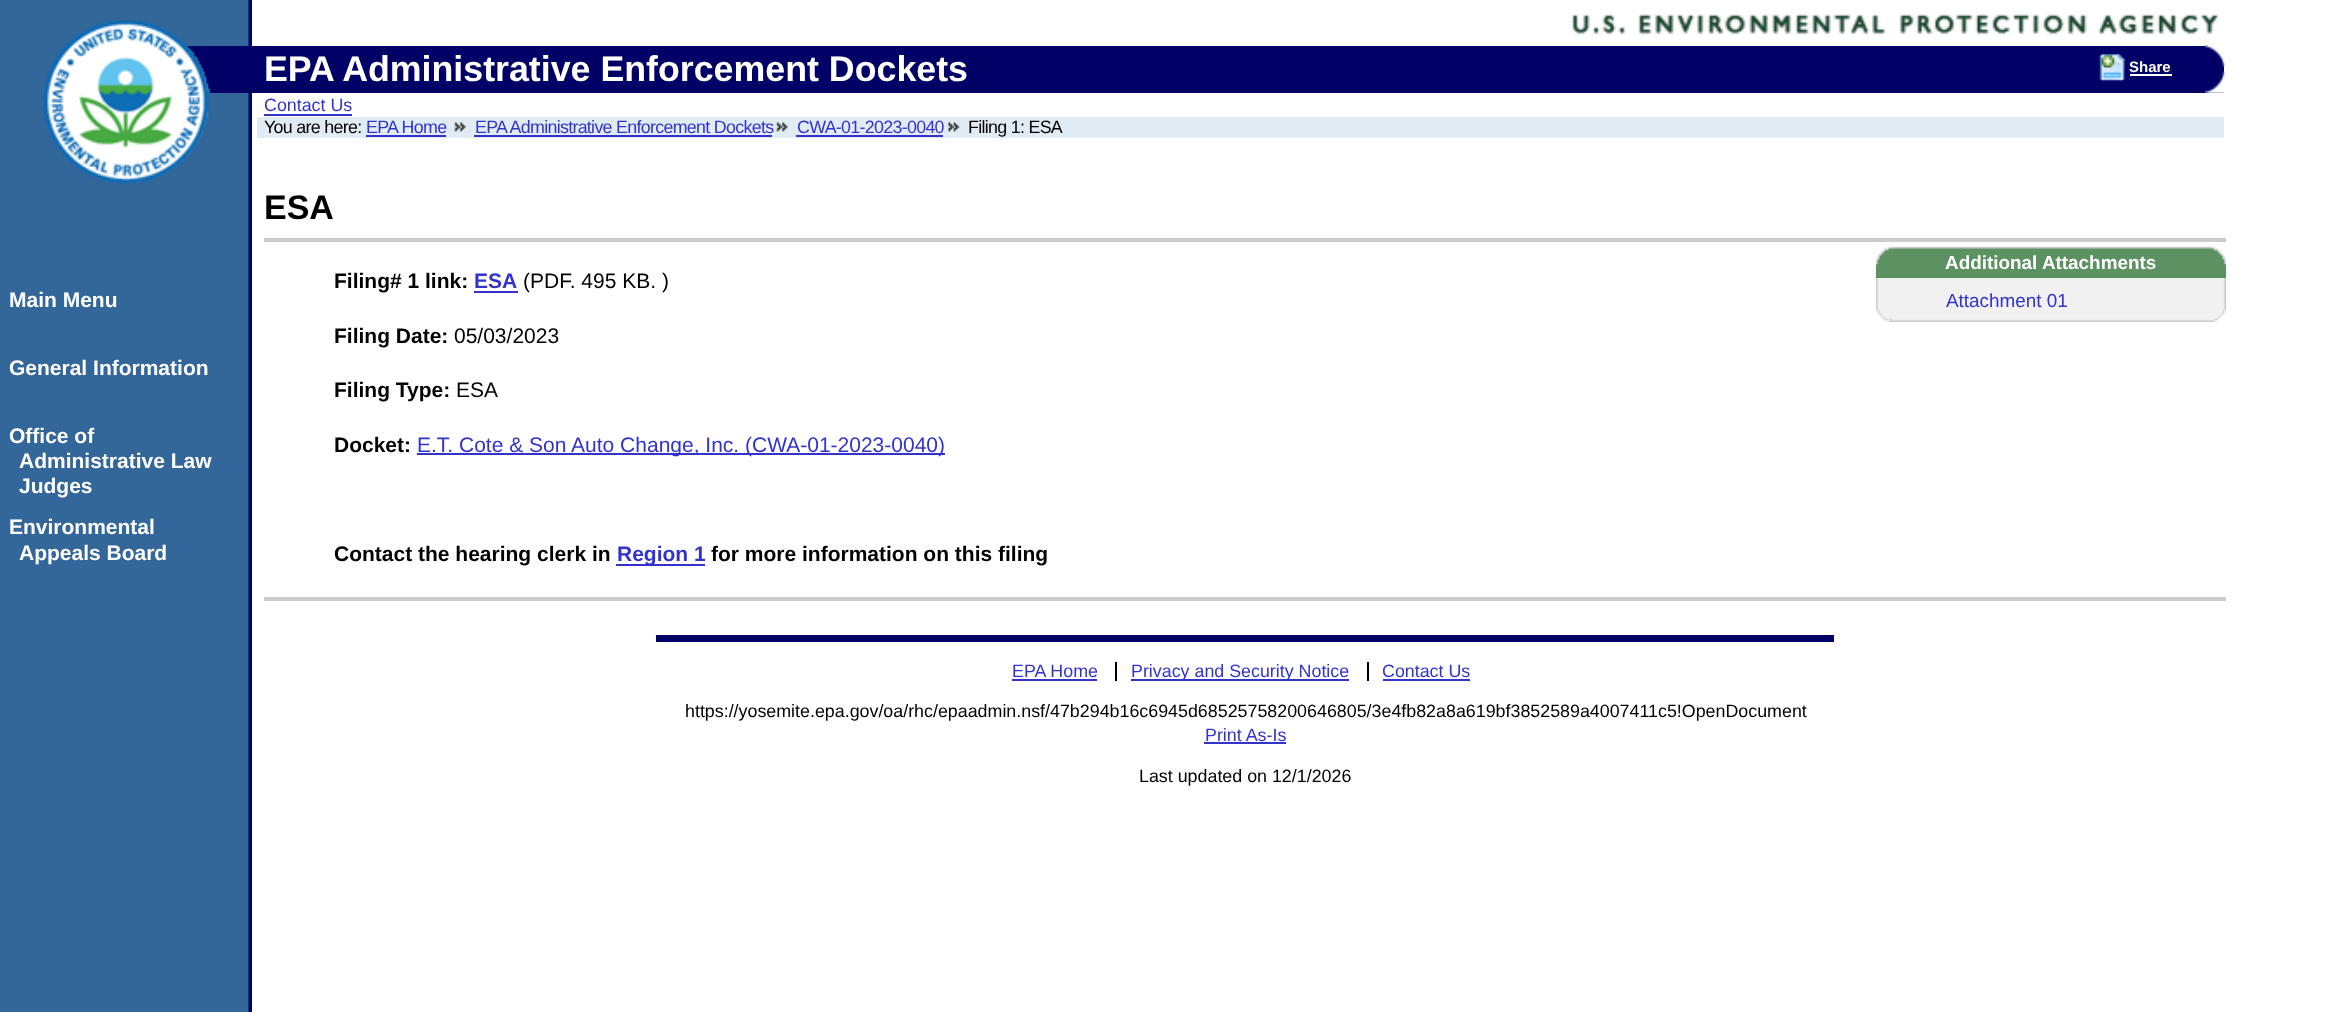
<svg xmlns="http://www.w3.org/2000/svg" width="2343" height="1012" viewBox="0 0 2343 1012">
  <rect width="100%" height="100%" fill="#fff"/>
  <image x="0" y="0" width="252" height="1012" href="img/1.png"/>
  <image x="1571" y="13" width="648" height="27" href="img/2.png"/>
  <path d="M186 46h2038v47H186z" fill="#006"/>
  <image x="43" y="20" width="168" height="164" href="img/3.png"/>
  <image x="2205" y="45" width="20" height="22" href="img/4.png"/>
  <image x="2205" y="71" width="20" height="22" href="img/5.png"/>
  <path d="M264 114h88v2H264z" fill="#33c"/>
  <path d="M257 117h1967v21H257z" fill="#e1ebf4"/>
  <path d="M366 135h80v2H366z" fill="#33c"/>
  <image x="454" y="122" width="12" height="10" href="img/6.png"/>
  <path d="M474 135h298v2H474z" fill="#33c"/>
  <image x="776" y="122" width="12" height="10" href="img/6.png"/>
  <path d="M796 135h147v2H796z" fill="#33c"/>
  <image x="948" y="122" width="12" height="10" href="img/7.png"/>
  <image x="2099" y="54" width="26" height="27" href="img/8.png"/>
  <path d="M2130 74h42v2H2130z" fill="#fff"/>
  <path d="M656 635h1178v7H656z" fill="#006"/>
  <path d="M1115 662h2v19H1115z" fill="#000"/>
  <path d="M1012 679h85v2H1012z" fill="#33c"/>
  <path d="M1367 662h2v19H1367z" fill="#000"/>
  <path d="M1131 679h218v2H1131z" fill="#33c"/>
  <path d="M1383 679h87v2H1383z" fill="#33c"/>
  <path d="M1204 742h82v2H1204z" fill="#33c"/>
  <path d="M264 238h1962v4H264z" fill="#ccc"/>
  <path d="M474 291h44v2H474z" fill="#33c"/>
  <path d="M417 453h528v2H417z" fill="#33c"/>
  <path d="M616 564h89v2H616z" fill="#33c"/>
  <path d="M1877 278h348v43H1877z" fill="#f1f1f1"/>
  <image x="1876" y="246" width="350" height="76" href="img/9.png"/>
  <path d="M1876 248h350v30H1876z" fill="#5c9261"/>
  <image x="1876" y="246" width="350" height="19" href="img/10.png"/>
  <path d="M264 597h1962v4H264z" fill="#ccc"/>
  <text x="264" y="81" font-family="Liberation Sans" font-size="35.75" font-weight="bold" fill="#fff">EPA Administrative Enforcement Dockets</text>
  <text x="264" y="111" font-family="Liberation Sans" font-size="17.85" fill="#33c">Contact Us</text>
  <text x="264" y="133" font-family="Liberation Sans" font-size="17.85" letter-spacing="-0.7" fill="#000">You are here:</text>
  <g font-family="Liberation Sans" font-size="17.85" letter-spacing="-0.7" fill="#33c">
    <text x="366" y="133">EPA Home</text>
    <text x="475" y="133">EPA Administrative Enforcement Dockets</text>
    <text x="797" y="133">CWA-01-2023-0040</text>
  </g>
  <text x="968" y="133" font-family="Liberation Sans" font-size="17.85" letter-spacing="-0.7" fill="#000">Filing 1: ESA</text>
  <text x="2129" y="72" font-family="Liberation Sans" font-size="15" font-weight="bold" fill="#fff">Share</text>
  <g font-family="Liberation Sans" font-size="17.85" fill="#33c">
    <text x="1012" y="677">EPA Home</text>
    <text x="1131" y="677">Privacy and Security Notice</text>
    <text x="1382" y="677">Contact Us</text>
  </g>
  <text x="685" y="717" font-family="Liberation Sans" font-size="17.85" fill="#000">https://yosemite.epa.gov/oa/rhc/epaadmin.nsf/47b294b16c6945d68525758200646805/3e4fb82a8a619bf3852589a4007411c5!OpenDocument</text>
  <text x="1205" y="741" font-family="Liberation Sans" font-size="17.85" fill="#33c">Print As-Is</text>
  <text x="1139" y="782" font-family="Liberation Sans" font-size="17.85" fill="#000">Last updated on 12/1/2026</text>
  <g font-family="Liberation Sans" font-size="21" font-weight="bold" fill="#fff">
    <text x="9" y="307">Main Menu</text>
    <text x="9" y="375">General Information</text>
    <text x="9" y="443">Office of</text>
    <text x="19" y="468">Administrative Law</text>
    <text x="19" y="493">Judges</text>
    <text x="9" y="534">Environmental</text>
    <text x="19" y="560">Appeals Board</text>
  </g>
  <text x="264" y="219" font-family="Liberation Sans" font-size="34" font-weight="bold" fill="#000">ESA</text>
  <text x="334" y="288" font-family="Liberation Sans" font-size="21" font-weight="bold" fill="#000">Filing# 1 link:</text>
  <text x="474" y="288" font-family="Liberation Sans" font-size="21" font-weight="bold" fill="#33c">ESA</text>
  <text x="523" y="288" font-family="Liberation Sans" font-size="21" fill="#000">(PDF. 495 KB. )</text>
  <text x="334" y="343" font-family="Liberation Sans" font-size="21" font-weight="bold" fill="#000">Filing Date:</text>
  <text x="454" y="343" font-family="Liberation Sans" font-size="21" fill="#000">05/03/2023</text>
  <text x="334" y="397" font-family="Liberation Sans" font-size="21" font-weight="bold" fill="#000">Filing Type:</text>
  <text x="456" y="397" font-family="Liberation Sans" font-size="21" fill="#000">ESA</text>
  <text x="334" y="452" font-family="Liberation Sans" font-size="21" font-weight="bold" fill="#000">Docket:</text>
  <text x="417" y="452" font-family="Liberation Sans" font-size="21" fill="#33c">E.T. Cote &amp; Son Auto Change, Inc. (CWA-01-2023-0040)</text>
  <text x="334" y="561" font-family="Liberation Sans" font-size="21" font-weight="bold" fill="#000">Contact the hearing clerk in</text>
  <text x="617" y="561" font-family="Liberation Sans" font-size="21" font-weight="bold" fill="#33c">Region 1</text>
  <text x="711" y="561" font-family="Liberation Sans" font-size="21" font-weight="bold" fill="#000">for more information on this filing</text>
  <text x="1945" y="269" font-family="Liberation Sans" font-size="18.9" font-weight="bold" fill="#fff">Additional Attachments</text>
  <text x="1946" y="307" font-family="Liberation Sans" font-size="18.9" fill="#33c">Attachment 01</text>
</svg>
